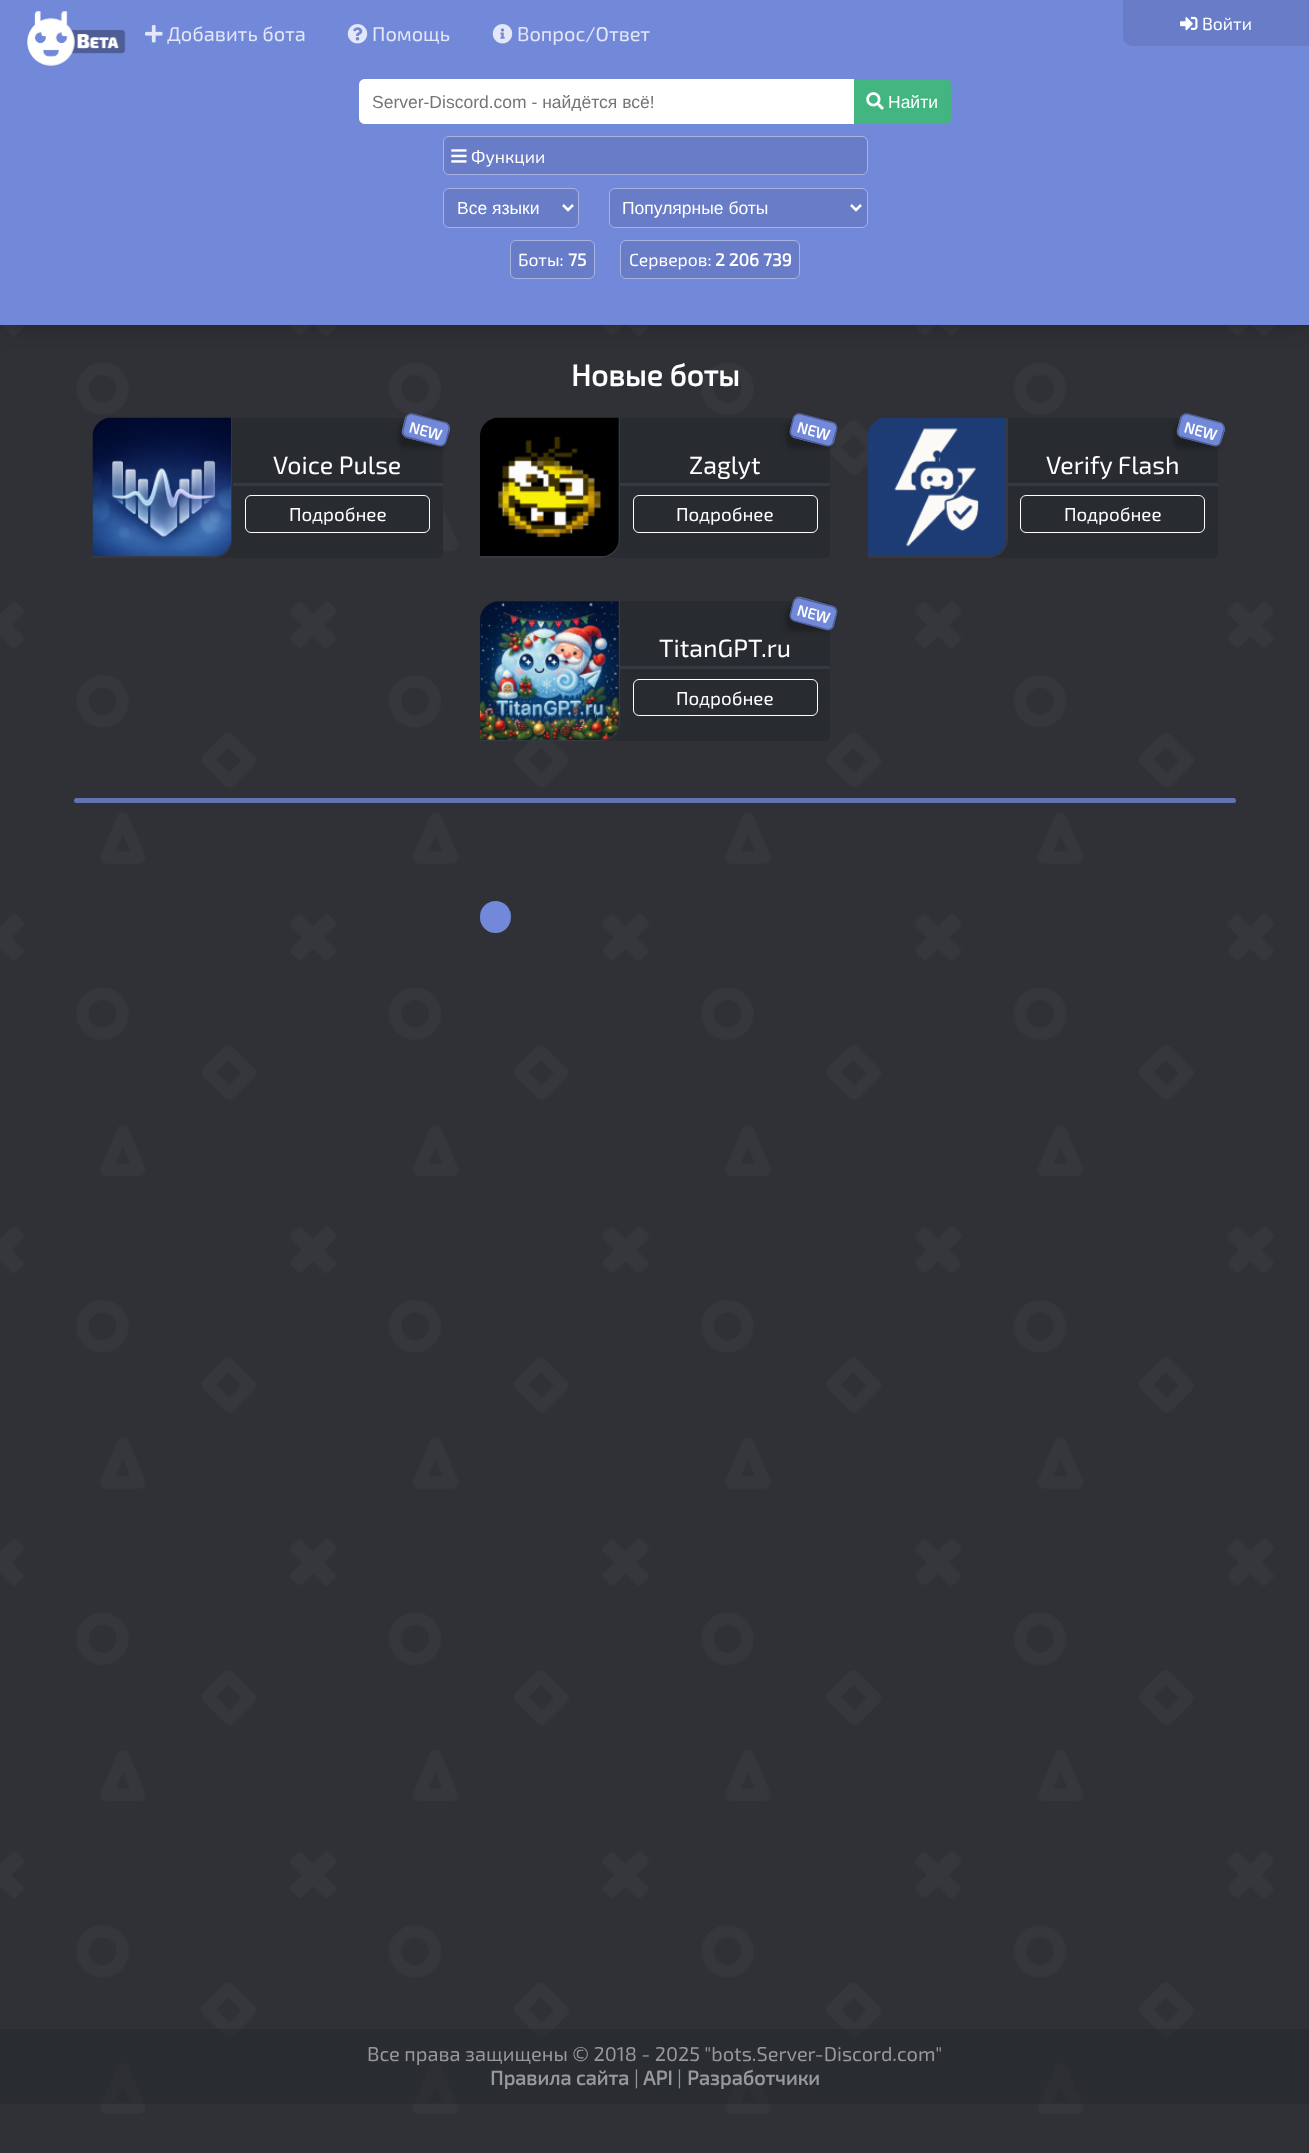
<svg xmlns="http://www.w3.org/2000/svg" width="1309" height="2153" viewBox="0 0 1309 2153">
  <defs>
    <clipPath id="clip1"><path d="M371 91h475v20H371z"/></clipPath>
  </defs>
  <rect width="100%" height="100%" fill="#fff"/>
  <image x="0" y="325" width="1309" height="1828" href="img/1.png"/>
  <path d="M0 -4h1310v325H0z" fill="#00000066" filter="blur(12.5px)"/>
  <path d="M0 0h1309v325H0z" fill="#7289da"/>
  <image x="27" y="11" width="99" height="55" href="img/2.png"/>
  <path d="M1123 0H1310V46H1133C1127.5 46 1123 41.5 1123 36Z" fill="#687cc7"/>
  <image x="1180" y="16" width="18" height="15" href="img/3.png"/>
  <image x="145" y="25" width="18" height="18" href="img/4.png"/>
  <image x="347" y="24" width="21" height="20" href="img/5.png"/>
  <image x="492" y="24" width="21" height="20" href="img/6.png"/>
  <path d="M365 79H859V124H365C361.5 124 359 121.5 359 118V85C359 81.5 361.5 79 365 79Z" fill="#fff"/>
  <path d="M854 79H945C948.5 79 951 81.5 951 85V118C951 121.5 948.5 124 945 124H854Z" fill="#43b581"/>
  <image x="866" y="92" width="18" height="18" href="img/7.png"/>
  <rect x="443.5" y="136.5" width="424" height="38" rx="5.5" fill="#687cc7" stroke="#a7b4e2"/>
  <image x="451" y="149" width="16" height="14" href="img/8.png"/>
  <rect x="443.5" y="188.5" width="135" height="39" rx="5.5" fill="#687cc7" stroke="#a7b4e2"/>
  <path d="M563 205L568 210L573 205" fill="none" stroke="#fff" stroke-width="2.5"/>
  <rect x="609.5" y="188.5" width="258" height="39" rx="5.5" fill="#687cc7" stroke="#a7b4e2"/>
  <path d="M851 205L856 210L861 205" fill="none" stroke="#fff" stroke-width="2.5"/>
  <rect x="510.5" y="240.5" width="84" height="38" rx="5.5" fill="#687cc7" stroke="#a7b4e2"/>
  <rect x="620.5" y="240.5" width="179" height="38" rx="5.5" fill="#687cc7" stroke="#a7b4e2"/>
  <path d="M114 418H437C440.5 418 443 420.5 443 424V552C443 555.5 440.5 558 437 558H99C95.5 558 93 555.5 93 552V439C93 427.5 102.5 418 114 418Z" fill="#282b30"/>
  <path d="M111 418H232V539C232 549 224 558 214 558H92V436C92 426 101 418 111 418ZM111 418H231V539C231 548 223 556 214 556H92V436C92 426 101 418 111 418Z" fill="#36393f" fill-rule="evenodd"/>
  <image x="92" y="417" width="140" height="140" href="img/9.png"/>
  <rect x="399" y="423" width="46" height="25" rx="6" fill="#00000040" filter="blur(2px)"/>
  <path d="M413 414L445 422C449 423 450 426 450 430L446 442C445 445 442 447 439 446L407 438C403 437 401 433 402 430L405 418C406 415 410 413 413 414Z" fill="#7289da"/>
  <path d="M413 414L445 422.5C448 423.5 450 426.5 449 429.5L446 441.5C445 444.5 442 446.5 439 445.5L407 437C404 436.5 402 433 403 430L406 418C407 415 410 413.5 413 414Z" fill="none" stroke="#4e5d94" stroke-width="1.3"/>
  <path d="M233 483h210v3H233z" fill="#36393f"/>
  <rect x="245.5" y="495.5" width="184" height="37" rx="5.5" fill="none" stroke="#fff"/>
  <path d="M501 418H824C827.5 418 830 420.5 830 424V552C830 555.5 827.5 558 824 558H486C482.5 558 480 555.5 480 552V439C480 427.5 489.5 418 501 418Z" fill="#282b30"/>
  <path d="M499 418H620V539C620 549 612 558 601 558H480V436C480 426 488 418 499 418ZM499 418H619V539C619 548 611 556 601 556H480V436C480 426 488 418 499 418Z" fill="#36393f" fill-rule="evenodd"/>
  <image x="480" y="417" width="139" height="139" href="img/10.png"/>
  <rect x="786" y="423" width="47" height="25" rx="6" fill="#00000040" filter="blur(2px)"/>
  <path d="M801 414L833 422C836 423 838 426 837 430L834 442C833 445 830 447 826 446L794 438C791 437 789 433 790 430L793 418C794 415 797 413 801 414Z" fill="#7289da"/>
  <path d="M800.5 414L832.5 422.5C835.5 423.5 837.5 426.5 836.5 429.5L833 441.5C832.5 444.5 829.5 446.5 826.5 445.5L794.5 437C791.5 436.5 789.5 433 790.5 430L793.5 418C794.5 415 797.5 413.5 800.5 414Z" fill="none" stroke="#4e5d94" stroke-width="1.3"/>
  <path d="M620 483h210v3H620z" fill="#36393f"/>
  <rect x="633.5" y="495.5" width="184" height="37" rx="5.5" fill="none" stroke="#fff"/>
  <path d="M889 418H1212C1215.5 418 1218 420.5 1218 424V552C1218 555.5 1215.5 558 1212 558H874C870.5 558 868 555.5 868 552V439C868 427.5 877.5 418 889 418Z" fill="#282b30"/>
  <path d="M886 418H1008V539C1008 549 999 558 989 558H868V436C868 426 876 418 886 418ZM886 418H1006V539C1006 548 998 556 989 556H868V436C868 426 876 418 886 418Z" fill="#36393f" fill-rule="evenodd"/>
  <image x="867" y="417" width="139" height="139" href="img/11.png"/>
  <rect x="1174" y="423" width="46" height="25" rx="6" fill="#00000040" filter="blur(2px)"/>
  <path d="M1188 414L1220 422C1223 423 1225 426 1225 430L1221 442C1220 445 1217 447 1214 446L1182 438C1178 437 1176 433 1177 430L1180 418C1181 415 1185 413 1188 414Z" fill="#7289da"/>
  <path d="M1188 414L1220 422.5C1223 423.5 1225 426.5 1224 429.5L1220.5 441.5C1220 444.5 1217 446.5 1214 445.5L1182 437C1178.5 436.5 1177 433 1178 430L1181 418C1182 415 1185 413.5 1188 414Z" fill="none" stroke="#4e5d94" stroke-width="1.3"/>
  <path d="M1008 483h210v3H1008z" fill="#36393f"/>
  <rect x="1020.5" y="495.5" width="184" height="37" rx="5.5" fill="none" stroke="#fff"/>
  <path d="M501 601H824C827.5 601 830 603.5 830 607V735C830 738.5 827.5 741 824 741H486C482.5 741 480 738.5 480 735V622C480 610.5 489.5 601 501 601Z" fill="#282b30"/>
  <path d="M499 601H620V722C620 733 612 741 601 741H480V620C480 610 488 601 499 601ZM499 601H619V722C619 732 611 740 601 740H480V620C480 610 488 601 499 601Z" fill="#36393f" fill-rule="evenodd"/>
  <image x="480" y="601" width="139" height="139" href="img/12.png"/>
  <rect x="786" y="606" width="47" height="25" rx="6" fill="#00000040" filter="blur(2px)"/>
  <path d="M801 597L833 606C836 607 838 610 837 613L834 626C833 629 830 631 826 630L794 621C791 620 789 617 790 614L793 602C794 598 797 596 801 597Z" fill="#7289da"/>
  <path d="M800.5 598L832.5 606.5C835.5 607 837.5 610.5 836.5 613.5L833 625.5C832.5 628.5 829.5 630 826.5 629.5L794.5 621C791.5 620 789.5 617 790.5 614L793.5 602C794.5 599 797.5 597 800.5 598Z" fill="none" stroke="#4e5d94" stroke-width="1.3"/>
  <path d="M620 666h210v3H620z" fill="#36393f"/>
  <rect x="633.5" y="679.5" width="184" height="36" rx="5.5" fill="none" stroke="#fff"/>
  <rect x="74" y="798" width="1162" height="5" rx="2.5" fill="#6173b1"/>
  <rect x="480" y="901" width="31" height="32" rx="15.5" fill="#7289da"/>
  <path d="M0 2029h1309v75H0z" fill="#23272a80"/>
  <text x="1202" y="30" font-family="'Exo 2'" font-size="17.5" fill="#fff">Войти</text>
  <g font-family="'Exo 2'" font-size="20" fill="#e3e7f8">
    <text x="167" y="41">Добавить бота</text>
    <text x="372" y="41">Помощь</text>
    <text x="517" y="41">Вопрос/Ответ</text>
  </g>
  <g clip-path="url(#clip1)">
    <text x="372" y="108" font-family="Liberation Sans" font-size="17.5" fill="#757575">Server-Discord.com - найдётся всё!</text>
  </g>
  <text x="888" y="108" font-family="Liberation Sans" font-size="17.5" fill="#fff">Найти</text>
  <text x="471" y="163" font-family="'Exo 2'" font-size="17.5" fill="#fff">Функции</text>
  <g font-family="Liberation Sans" font-size="17.5" fill="#fff">
    <text x="457" y="214">Все языки</text>
    <text x="622" y="214">Популярные боты</text>
  </g>
  <text x="518" y="266" font-family="'Exo 2'" font-size="17.5" fill="#fff">Боты:</text>
  <text x="568" y="266" font-family="'Exo 2'" font-size="17.5" font-weight="bold" fill="#fff">75</text>
  <text x="629" y="266" font-family="'Exo 2'" font-size="17.5" fill="#fff">Серверов:</text>
  <text x="715" y="266" font-family="'Exo 2'" font-size="17.5" font-weight="bold" fill="#fff">2 206 739</text>
  <text x="571" y="386" font-family="'Exo 2'" font-size="30" font-weight="bold" fill="#fff">Новые боты</text>
  <text x="408" y="432" transform="rotate(15 408 432)" font-family="'Exo 2'" font-size="15" font-weight="bold" fill="#fff">NEW</text>
  <text x="273" y="474" font-family="'Exo 2'" font-size="25" fill="#fff">Voice Pulse</text>
  <text x="289" y="521" font-family="'Exo 2'" font-size="18.75" fill="#fff">Подробнее</text>
  <text x="796" y="432" transform="rotate(15 796 432)" font-family="'Exo 2'" font-size="15" font-weight="bold" fill="#fff">NEW</text>
  <text x="689" y="474" font-family="'Exo 2'" font-size="25" fill="#fff">Zaglyt</text>
  <text x="676" y="521" font-family="'Exo 2'" font-size="18.75" fill="#fff">Подробнее</text>
  <text x="1183" y="432" transform="rotate(15 1183 432)" font-family="'Exo 2'" font-size="15" font-weight="bold" fill="#fff">NEW</text>
  <text x="1046" y="474" font-family="'Exo 2'" font-size="25" fill="#fff">Verify Flash</text>
  <text x="1064" y="521" font-family="'Exo 2'" font-size="18.75" fill="#fff">Подробнее</text>
  <text x="796" y="615" transform="rotate(15 796 615)" font-family="'Exo 2'" font-size="15" font-weight="bold" fill="#fff">NEW</text>
  <text x="659" y="657" font-family="'Exo 2'" font-size="25" fill="#fff">TitanGPT.ru</text>
  <text x="676" y="705" font-family="'Exo 2'" font-size="18.75" fill="#fff">Подробнее</text>
  <text x="367" y="2061" font-family="'Exo 2'" font-size="20" fill="#97989b">Все права защищены © 2018 - 2025 "bots.Server-Discord.com"</text>
  <text x="490" y="2085" font-family="'Exo 2'" font-size="20" font-weight="bold" fill="#97989b">Правила сайта</text>
  <text x="634" y="2085" font-family="'Exo 2'" font-size="20" fill="#97989b">|</text>
  <text x="643" y="2085" font-family="'Exo 2'" font-size="20" font-weight="bold" fill="#97989b">API</text>
  <text x="677" y="2085" font-family="'Exo 2'" font-size="20" fill="#97989b">|</text>
  <text x="687" y="2085" font-family="'Exo 2'" font-size="20" font-weight="bold" fill="#97989b">Разработчики</text>
</svg>
